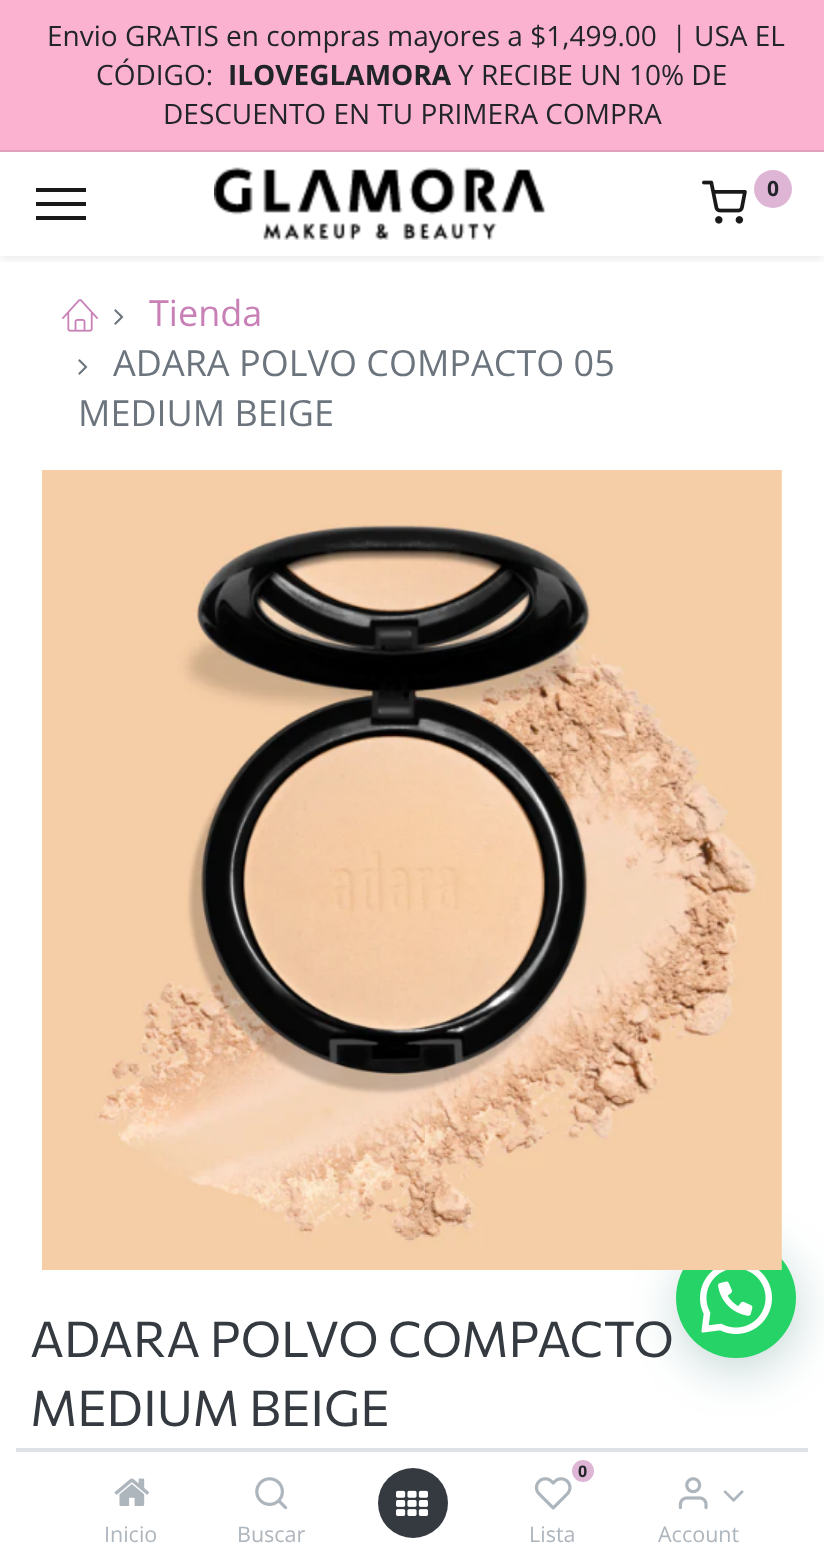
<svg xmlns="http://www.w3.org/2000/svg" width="824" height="1562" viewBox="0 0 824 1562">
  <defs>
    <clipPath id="clip1"><path d="M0 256h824v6H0z"/></clipPath>
  </defs>
  <rect width="100%" height="100%" fill="#fff"/>
  <path d="M0 0h824v150H0z" fill="#fbb2d1"/>
  <path d="M0 150h824v2H0z" fill="#e1a1bd"/>
  <g clip-path="url(#clip1)">
    <path d="M0 156h824v104H0z" fill="#00000012" filter="blur(4px)"/>
  </g>
  <path d="M36 188h50v4H36z" fill="#1a191a"/>
  <path d="M36 202h50v4H36z" fill="#1a191a"/>
  <path d="M36 216h50v4H36z" fill="#1a191a"/>
  <image x="214" y="167" width="332" height="73" href="img/1.png"/>
  <image x="702" y="180" width="45" height="44" href="img/2.png"/>
  <circle cx="773" cy="189" r="19" fill="#dfb5d5"/>
  <image x="62" y="299" width="36" height="33" href="img/3.png"/>
  <image x="114" y="309" width="10" height="16" href="img/4.png"/>
  <image x="78" y="359" width="10" height="16" href="img/4.png"/>
  <rect x="678" y="1250" width="120" height="120" rx="60" fill="#075e543d" filter="blur(24px)"/>
  <circle cx="736" cy="1298" r="60" fill="#25d366"/>
  <image x="42" y="470" width="740" height="800" href="img/5.png"/>
  <image x="700" y="1270" width="72" height="64" href="img/6.png"/>
  <path d="M16 1448h792v4H16z" fill="#dee2e6"/>
  <image x="114" y="1478" width="35" height="28" href="img/7.png"/>
  <image x="255" y="1477" width="33" height="33" href="img/8.png"/>
  <circle cx="413" cy="1503" r="35" fill="#343a40"/>
  <image x="396" y="1490" width="32" height="26" href="img/9.png"/>
  <circle cx="583" cy="1471" r="11" fill="#dfb5d5"/>
  <image x="534" y="1477" width="38" height="33" href="img/10.png"/>
  <image x="678" y="1477" width="30" height="33" href="img/11.png"/>
  <image x="723" y="1490" width="21" height="12" href="img/12.png"/>
  <g font-family="Open Sans" font-size="28" fill="#212529">
    <text x="47" y="46" xml:space="preserve">Envio GRATIS en compras mayores a $1,499.00  | USA EL</text>
    <text x="96" y="85">CÓDIGO:</text>
  </g>
  <text x="228" y="85" font-family="Open Sans" font-size="28" font-weight="bold" fill="#212529">ILOVEGLAMORA</text>
  <g font-family="Open Sans" font-size="28" fill="#212529">
    <text x="458" y="85">Y RECIBE UN 10% DE</text>
    <text x="163" y="124">DESCUENTO EN TU PRIMERA COMPRA</text>
  </g>
  <text x="767" y="196" font-family="Open Sans" font-size="21" font-weight="bold" fill="#212529">0</text>
  <text x="149" y="326" font-family="Open Sans" font-size="36" fill="#c880b7">Tienda</text>
  <g font-family="Open Sans" font-size="36" fill="#6c757d">
    <text x="113" y="376">ADARA POLVO COMPACTO 05</text>
    <text x="78" y="426">MEDIUM BEIGE</text>
  </g>
  <g font-family="Commissioner" font-size="49.4" fill="#343a40">
    <text x="30" y="1357">ADARA POLVO COMPACTO</text>
    <text x="30" y="1426">MEDIUM BEIGE</text>
  </g>
  <g font-family="Open Sans" font-size="21.5" fill="#adb5bd">
    <text x="104" y="1542">Inicio</text>
    <text x="237" y="1542">Buscar</text>
  </g>
  <text x="578" y="1477" font-family="Open Sans" font-size="16" font-weight="bold" fill="#212529">0</text>
  <g font-family="Open Sans" font-size="21.5" fill="#adb5bd">
    <text x="529" y="1542">Lista</text>
    <text x="658" y="1542">Account</text>
  </g>
</svg>
